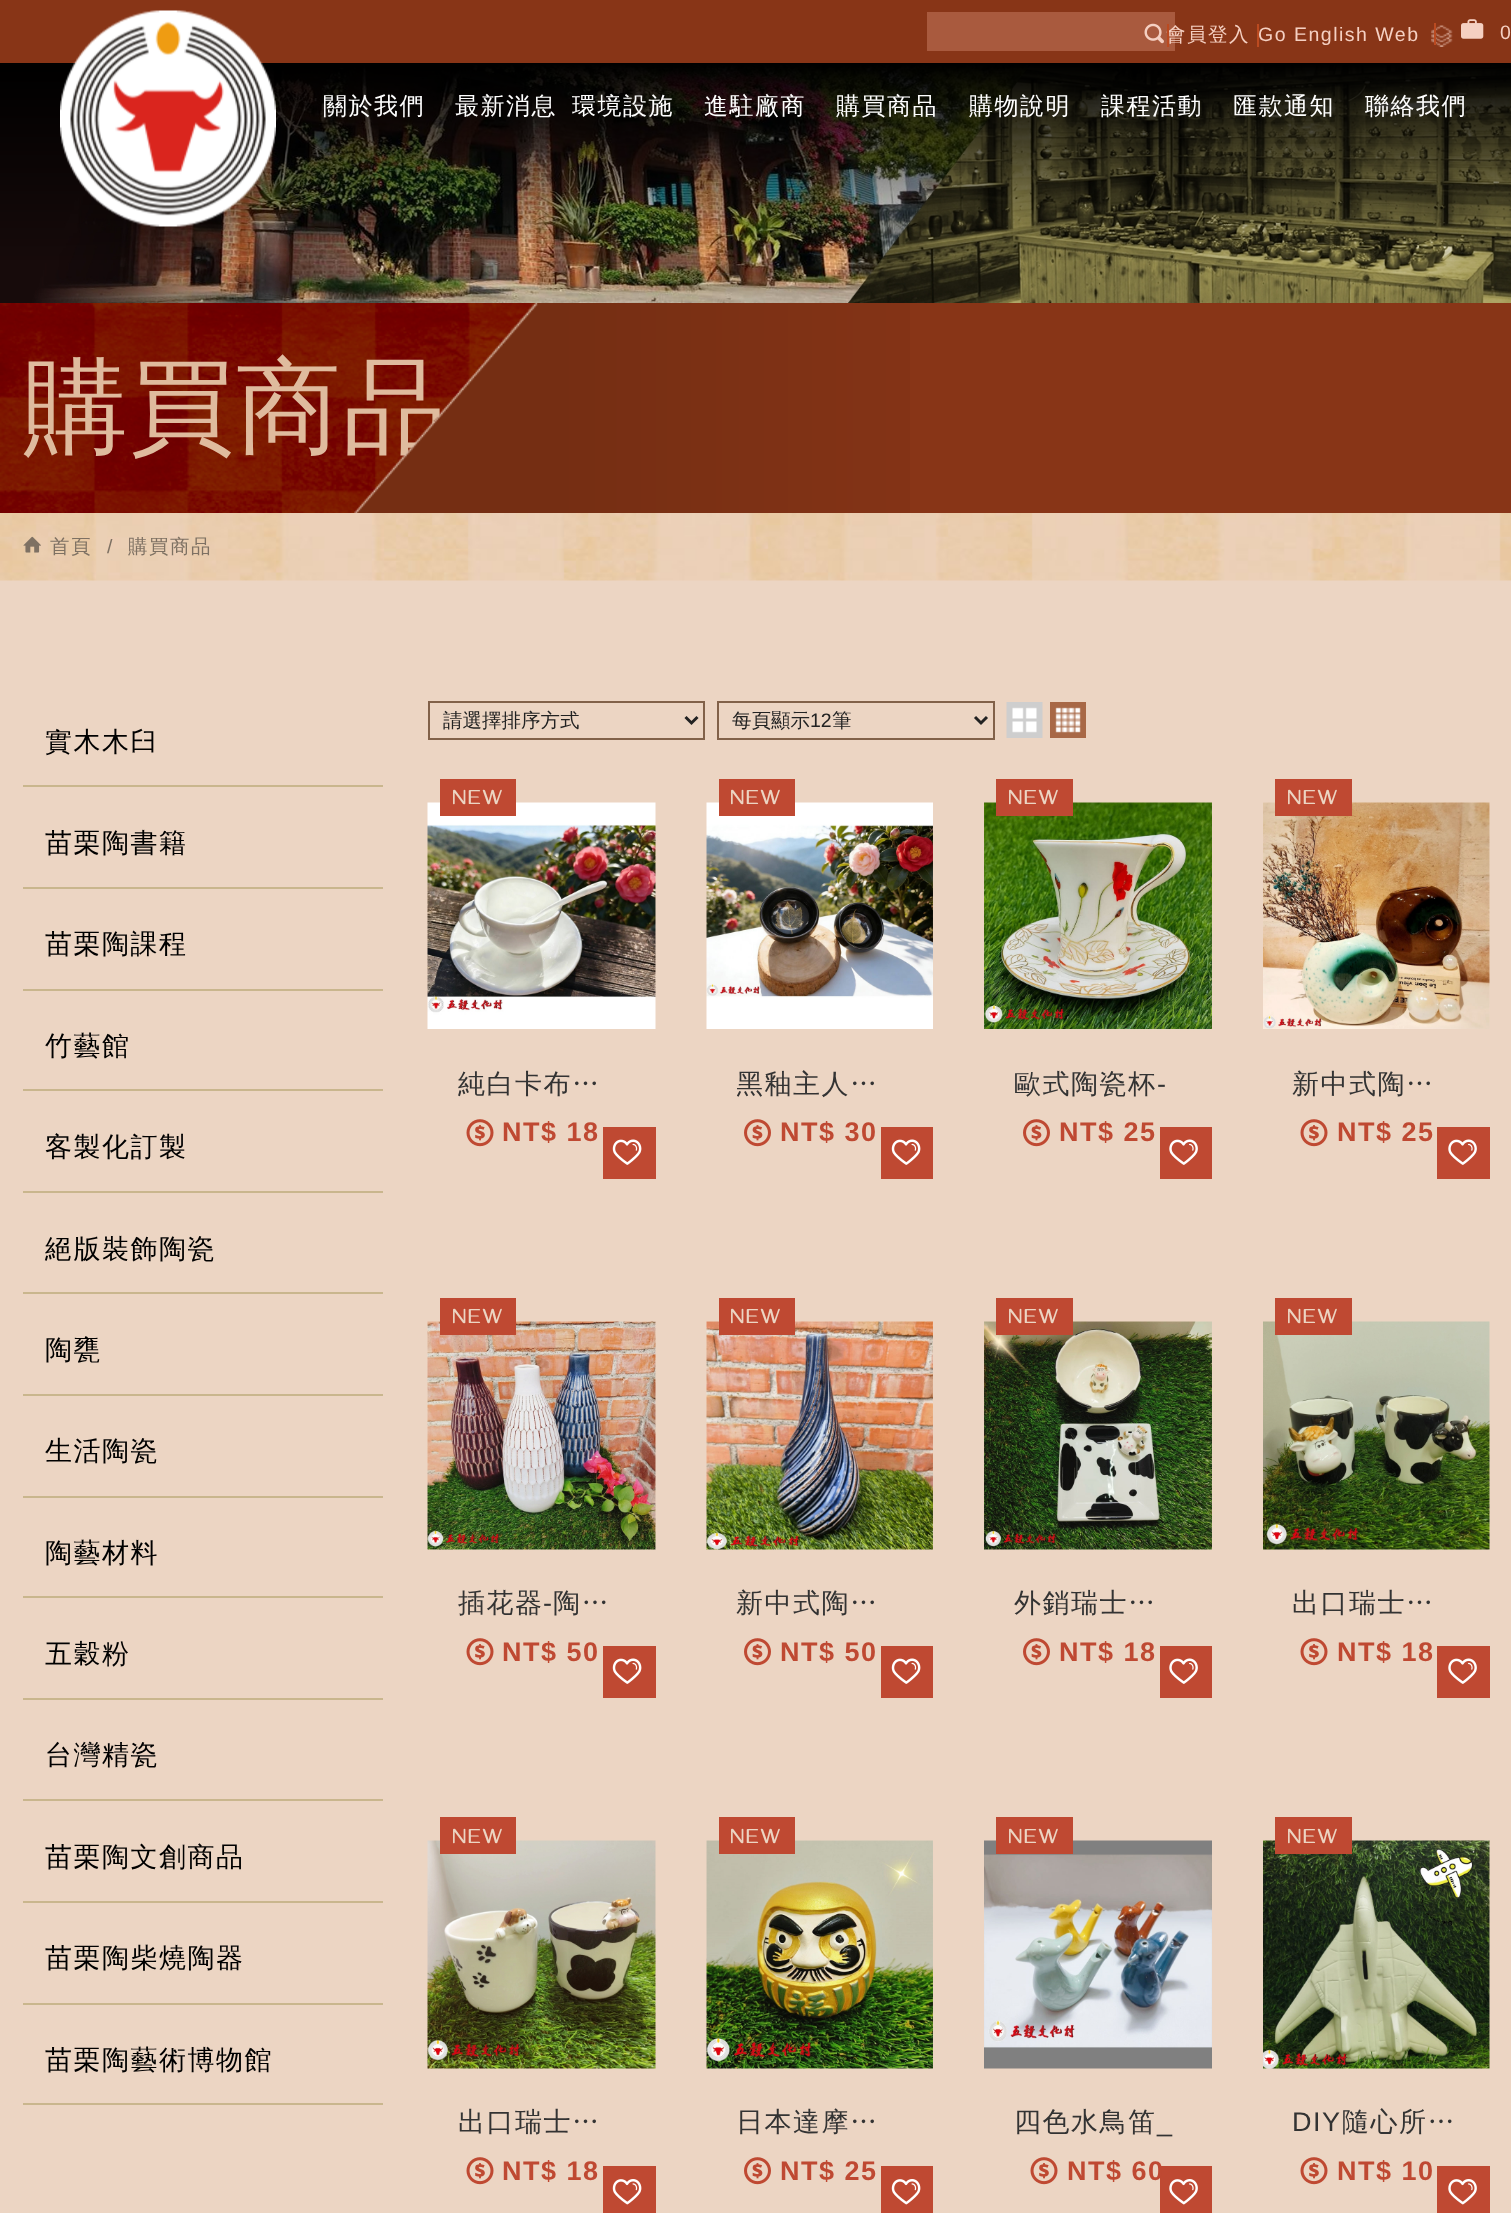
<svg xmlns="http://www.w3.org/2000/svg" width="1511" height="2213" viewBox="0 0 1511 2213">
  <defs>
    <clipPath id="clip1"><path d="M458 1059h168v50H458z"/></clipPath>
    <clipPath id="clip2"><path d="M737 1059h166v50H737z"/></clipPath>
  </defs>
  <rect width="100%" height="100%" fill="#ecd5c3"/>
  <path d="M0 0h1511v63H0z" fill="#883517"/>
  <image x="0" y="65" width="1511" height="238" href="img/1.png"/>
  <image x="0" y="63" width="1511" height="197" href="img/6.png"/>
  <image x="60" y="10" width="216" height="217" href="img/2.png"/>
  <path d="M927 12h248v39H927z" fill="#a95a3e"/>
  <image x="1144" y="23" width="20" height="21" href="img/3.png"/>
  <image x="1431" y="25" width="22" height="22" href="img/4.png"/>
  <path d="M1434 23h2v22H1434z" fill="#bb4a20"/>
  <image x="1461" y="19" width="23" height="20" href="img/5.png"/>
  <image x="0" y="303" width="535" height="210" href="img/7.png"/>
  <path d="M910 303h601v210H910z" fill="#883517"/>
  <image x="0" y="513" width="1511" height="68" href="img/9.png"/>
  <image x="23" y="536" width="18" height="17" href="img/10.png"/>
  <path d="M23 785h360v2H23z" fill="#c9b68d"/>
  <path d="M23 887h360v2H23z" fill="#c9b68d"/>
  <path d="M23 989h360v2H23z" fill="#c9b68d"/>
  <path d="M23 1089h360v2H23z" fill="#c9b68d"/>
  <path d="M23 1191h360v2H23z" fill="#c9b68d"/>
  <path d="M23 1292h360v2H23z" fill="#c9b68d"/>
  <path d="M23 1394h360v2H23z" fill="#c9b68d"/>
  <path d="M23 1496h360v2H23z" fill="#c9b68d"/>
  <path d="M23 1596h360v2H23z" fill="#c9b68d"/>
  <path d="M23 1698h360v2H23z" fill="#c9b68d"/>
  <path d="M23 1799h360v2H23z" fill="#c9b68d"/>
  <path d="M23 1901h360v2H23z" fill="#c9b68d"/>
  <path d="M23 2003h360v2H23z" fill="#c9b68d"/>
  <path d="M23 2103h360v2H23z" fill="#c9b68d"/>
  <path d="M429 702h275v37H429z" fill="none" stroke="#816149" stroke-width="2"/>
  <path d="M685.5 717L691.5 723L697.5 717" fill="none" stroke="#222" stroke-width="3"/>
  <path d="M718 702h276v37H718z" fill="none" stroke="#816149" stroke-width="2"/>
  <path d="M975 717L981 723L987 717" fill="none" stroke="#222" stroke-width="3"/>
  <image x="1006" y="702" width="37" height="36" href="img/11.png"/>
  <image x="1050" y="702" width="36" height="36" href="img/12.png"/>
  <image x="427" y="802" width="229" height="227" href="img/13.png"/>
  <path d="M440 779h76v37H440z" fill="#bf4932"/>
  <image x="466" y="1119" width="28" height="28" href="img/14.png"/>
  <path d="M603 1127h53v52H603z" fill="#bf4932"/>
  <image x="612" y="1139" width="30" height="26" href="img/15.png"/>
  <image x="706" y="802" width="227" height="227" href="img/16.png"/>
  <path d="M719 779h76v37H719z" fill="#bf4932"/>
  <image x="744" y="1119" width="27" height="28" href="img/17.png"/>
  <path d="M881 1127h52v52H881z" fill="#bf4932"/>
  <image x="891" y="1139" width="30" height="26" href="img/15.png"/>
  <image x="984" y="802" width="228" height="227" href="img/18.png"/>
  <path d="M996 779h77v37H996z" fill="#bf4932"/>
  <image x="1023" y="1119" width="27" height="28" href="img/17.png"/>
  <path d="M1160 1127h52v52H1160z" fill="#bf4932"/>
  <image x="1169" y="1139" width="29" height="26" href="img/19.png"/>
  <image x="1263" y="802" width="227" height="227" href="img/20.png"/>
  <path d="M1275 779h77v37H1275z" fill="#bf4932"/>
  <image x="1300" y="1119" width="28" height="28" href="img/14.png"/>
  <path d="M1437 1127h53v52H1437z" fill="#bf4932"/>
  <image x="1448" y="1139" width="29" height="26" href="img/19.png"/>
  <image x="427" y="1321" width="229" height="229" href="img/21.png"/>
  <path d="M440 1298h76v37H440z" fill="#bf4932"/>
  <image x="466" y="1638" width="28" height="28" href="img/14.png"/>
  <path d="M603 1646h53v52H603z" fill="#bf4932"/>
  <image x="612" y="1658" width="30" height="26" href="img/15.png"/>
  <image x="706" y="1321" width="227" height="229" href="img/22.png"/>
  <path d="M719 1298h76v37H719z" fill="#bf4932"/>
  <image x="744" y="1638" width="27" height="28" href="img/17.png"/>
  <path d="M881 1646h52v52H881z" fill="#bf4932"/>
  <image x="891" y="1658" width="30" height="26" href="img/15.png"/>
  <image x="984" y="1321" width="228" height="229" href="img/23.png"/>
  <path d="M996 1298h77v37H996z" fill="#bf4932"/>
  <image x="1023" y="1638" width="27" height="28" href="img/17.png"/>
  <path d="M1160 1646h52v52H1160z" fill="#bf4932"/>
  <image x="1169" y="1658" width="29" height="26" href="img/19.png"/>
  <image x="1263" y="1321" width="227" height="229" href="img/24.png"/>
  <path d="M1275 1298h77v37H1275z" fill="#bf4932"/>
  <image x="1300" y="1638" width="28" height="28" href="img/14.png"/>
  <path d="M1437 1646h53v52H1437z" fill="#bf4932"/>
  <image x="1448" y="1658" width="29" height="26" href="img/19.png"/>
  <image x="427" y="1840" width="229" height="229" href="img/25.png"/>
  <path d="M440 1817h76v37H440z" fill="#bf4932"/>
  <image x="466" y="2157" width="28" height="28" href="img/14.png"/>
  <path d="M603 2166h53v47H603z" fill="#bf4932"/>
  <image x="612" y="2179" width="30" height="26" href="img/26.png"/>
  <image x="706" y="1840" width="227" height="229" href="img/27.png"/>
  <path d="M719 1817h76v37H719z" fill="#bf4932"/>
  <image x="744" y="2157" width="27" height="28" href="img/17.png"/>
  <path d="M881 2166h52v47H881z" fill="#bf4932"/>
  <image x="891" y="2179" width="30" height="26" href="img/26.png"/>
  <image x="984" y="1840" width="228" height="229" href="img/28.png"/>
  <path d="M996 1817h77v37H996z" fill="#bf4932"/>
  <image x="1030" y="2157" width="28" height="28" href="img/14.png"/>
  <path d="M1160 2166h52v47H1160z" fill="#bf4932"/>
  <image x="1169" y="2179" width="29" height="26" href="img/29.png"/>
  <image x="1263" y="1840" width="227" height="229" href="img/30.png"/>
  <path d="M1275 1817h77v37H1275z" fill="#bf4932"/>
  <image x="1300" y="2157" width="28" height="28" href="img/14.png"/>
  <path d="M1437 2166h53v47H1437z" fill="#bf4932"/>
  <image x="1448" y="2179" width="29" height="26" href="img/29.png"/>
  <text x="1166" y="41" font-family="WenQuanYi Zen Hei" font-size="19.5" font-weight="500" letter-spacing="1.5" fill="#f5d0c2">會員登入</text>
  <path d="M1167 24h2v23H1167z" fill="#bb4a20"/>
  <text x="1258" y="41" font-family="Liberation Sans" font-size="19.5" letter-spacing="1.5" fill="#f5d0c2">Go English Web</text>
  <path d="M1257 24h2v23H1257z" fill="#bb4a20"/>
  <text x="1500" y="39" font-family="Liberation Sans" font-size="19.5" letter-spacing="1.5" fill="#f5d0c2">0</text>
  <g font-family="WenQuanYi Zen Hei" font-size="24" font-weight="500" letter-spacing="1.5" fill="#fff">
    <text x="323" y="114">關於我們</text>
    <text x="455" y="114">最新消息</text>
    <text x="572" y="114">環境設施</text>
    <text x="704" y="114">進駐廠商</text>
    <text x="836" y="114">購買商品</text>
    <text x="969" y="114">購物說明</text>
    <text x="1101" y="114">課程活動</text>
    <text x="1233" y="114">匯款通知</text>
    <text x="1365" y="114">聯絡我們</text>
  </g>
  <text x="23" y="443" font-family="WenQuanYi Zen Hei" font-size="105" font-weight="500" letter-spacing="1.5" fill="#dfbb9e">購買商品</text>
  <image x="354" y="303" width="556" height="210" href="img/8.png"/>
  <text x="50" y="553" font-family="WenQuanYi Zen Hei" font-size="19.5" font-weight="500" letter-spacing="1.5" fill="#7e7163">首頁</text>
  <text x="107" y="553" font-family="Liberation Sans" font-size="19.5" letter-spacing="1.5" fill="#7e7163">/</text>
  <text x="128" y="553" font-family="WenQuanYi Zen Hei" font-size="19.5" font-weight="500" letter-spacing="1.5" fill="#7e7163">購買商品</text>
  <g font-family="WenQuanYi Zen Hei" font-size="27" font-weight="500" letter-spacing="1.5" fill="#000">
    <text x="45" y="751">實木木臼</text>
    <text x="45" y="852">苗栗陶書籍</text>
    <text x="45" y="953">苗栗陶課程</text>
    <text x="45" y="1055">竹藝館</text>
    <text x="45" y="1156">客製化訂製</text>
    <text x="45" y="1258">絕版裝飾陶瓷</text>
    <text x="45" y="1359">陶甕</text>
    <text x="45" y="1460">生活陶瓷</text>
    <text x="45" y="1562">陶藝材料</text>
    <text x="45" y="1663">五穀粉</text>
    <text x="45" y="1764">台灣精瓷</text>
    <text x="45" y="1866">苗栗陶文創商品</text>
    <text x="45" y="1967">苗栗陶柴燒陶器</text>
    <text x="45" y="2069">苗栗陶藝術博物館</text>
  </g>
  <g font-family="WenQuanYi Zen Hei" font-size="19.5" font-weight="500" fill="#222">
    <text x="443" y="727">請選擇排序方式</text>
    <text x="732" y="727">每頁顯示</text>
  </g>
  <text x="810" y="727" font-family="Liberation Sans" font-size="19.5" fill="#222">12</text>
  <text x="832" y="727" font-family="WenQuanYi Zen Hei" font-size="19.5" font-weight="500" fill="#222">筆</text>
  <text x="452" y="804" font-family="Gayathri" font-size="21" font-weight="bold" letter-spacing="1.5" fill="#ecd5c3">NEW</text>
  <g clip-path="url(#clip1)">
    <text x="458" y="1093" font-family="WenQuanYi Zen Hei" font-size="27" font-weight="500" letter-spacing="1.5" fill="#333">純白卡布…</text>
  </g>
  <text x="502" y="1141" font-family="Liberation Sans" font-size="27" font-weight="bold" letter-spacing="1.5" fill="#bf4932">NT$ 18</text>
  <text x="730" y="804" font-family="Gayathri" font-size="21" font-weight="bold" letter-spacing="1.5" fill="#ecd5c3">NEW</text>
  <g clip-path="url(#clip2)">
    <text x="736" y="1093" font-family="WenQuanYi Zen Hei" font-size="27" font-weight="500" letter-spacing="1.5" fill="#333">黑釉主人…</text>
  </g>
  <text x="780" y="1141" font-family="Liberation Sans" font-size="27" font-weight="bold" letter-spacing="1.5" fill="#bf4932">NT$ 30</text>
  <text x="1008" y="804" font-family="Gayathri" font-size="21" font-weight="bold" letter-spacing="1.5" fill="#ecd5c3">NEW</text>
  <text x="1014" y="1093" font-family="WenQuanYi Zen Hei" font-size="27" font-weight="500" letter-spacing="1.5" fill="#333">歐式陶瓷杯</text>
  <text x="1157" y="1093" font-family="Liberation Sans" font-size="27" letter-spacing="1.5" fill="#333">-</text>
  <text x="1059" y="1141" font-family="Liberation Sans" font-size="27" font-weight="bold" letter-spacing="1.5" fill="#bf4932">NT$ 25</text>
  <text x="1287" y="804" font-family="Gayathri" font-size="21" font-weight="bold" letter-spacing="1.5" fill="#ecd5c3">NEW</text>
  <text x="1292" y="1093" font-family="WenQuanYi Zen Hei" font-size="27" font-weight="500" letter-spacing="1.5" fill="#333">新中式陶…</text>
  <text x="1337" y="1141" font-family="Liberation Sans" font-size="27" font-weight="bold" letter-spacing="1.5" fill="#bf4932">NT$ 25</text>
  <text x="452" y="1323" font-family="Gayathri" font-size="21" font-weight="bold" letter-spacing="1.5" fill="#ecd5c3">NEW</text>
  <text x="458" y="1612" font-family="WenQuanYi Zen Hei" font-size="27" font-weight="500" letter-spacing="1.5" fill="#333">插花器</text>
  <text x="543" y="1612" font-family="Liberation Sans" font-size="27" letter-spacing="1.5" fill="#333">-</text>
  <text x="553" y="1612" font-family="WenQuanYi Zen Hei" font-size="27" font-weight="500" letter-spacing="1.5" fill="#333">陶…</text>
  <text x="502" y="1661" font-family="Liberation Sans" font-size="27" font-weight="bold" letter-spacing="1.5" fill="#bf4932">NT$ 50</text>
  <text x="730" y="1323" font-family="Gayathri" font-size="21" font-weight="bold" letter-spacing="1.5" fill="#ecd5c3">NEW</text>
  <text x="736" y="1612" font-family="WenQuanYi Zen Hei" font-size="27" font-weight="500" letter-spacing="1.5" fill="#333">新中式陶…</text>
  <text x="780" y="1661" font-family="Liberation Sans" font-size="27" font-weight="bold" letter-spacing="1.5" fill="#bf4932">NT$ 50</text>
  <text x="1008" y="1323" font-family="Gayathri" font-size="21" font-weight="bold" letter-spacing="1.5" fill="#ecd5c3">NEW</text>
  <text x="1014" y="1612" font-family="WenQuanYi Zen Hei" font-size="27" font-weight="500" letter-spacing="1.5" fill="#333">外銷瑞士…</text>
  <text x="1059" y="1661" font-family="Liberation Sans" font-size="27" font-weight="bold" letter-spacing="1.5" fill="#bf4932">NT$ 18</text>
  <text x="1287" y="1323" font-family="Gayathri" font-size="21" font-weight="bold" letter-spacing="1.5" fill="#ecd5c3">NEW</text>
  <text x="1292" y="1612" font-family="WenQuanYi Zen Hei" font-size="27" font-weight="500" letter-spacing="1.5" fill="#333">出口瑞士…</text>
  <text x="1337" y="1661" font-family="Liberation Sans" font-size="27" font-weight="bold" letter-spacing="1.5" fill="#bf4932">NT$ 18</text>
  <text x="452" y="1843" font-family="Gayathri" font-size="21" font-weight="bold" letter-spacing="1.5" fill="#ecd5c3">NEW</text>
  <text x="458" y="2131" font-family="WenQuanYi Zen Hei" font-size="27" font-weight="500" letter-spacing="1.5" fill="#333">出口瑞士…</text>
  <text x="502" y="2180" font-family="Liberation Sans" font-size="27" font-weight="bold" letter-spacing="1.5" fill="#bf4932">NT$ 18</text>
  <text x="730" y="1843" font-family="Gayathri" font-size="21" font-weight="bold" letter-spacing="1.5" fill="#ecd5c3">NEW</text>
  <text x="736" y="2131" font-family="WenQuanYi Zen Hei" font-size="27" font-weight="500" letter-spacing="1.5" fill="#333">日本達摩…</text>
  <text x="780" y="2180" font-family="Liberation Sans" font-size="27" font-weight="bold" letter-spacing="1.5" fill="#bf4932">NT$ 25</text>
  <text x="1008" y="1843" font-family="Gayathri" font-size="21" font-weight="bold" letter-spacing="1.5" fill="#ecd5c3">NEW</text>
  <text x="1014" y="2131" font-family="WenQuanYi Zen Hei" font-size="27" font-weight="500" letter-spacing="1.5" fill="#333">四色水鳥笛</text>
  <text x="1157" y="2131" font-family="Liberation Sans" font-size="27" letter-spacing="1.5" fill="#333">_</text>
  <text x="1067" y="2180" font-family="Liberation Sans" font-size="27" font-weight="bold" letter-spacing="1.5" fill="#bf4932">NT$ 60</text>
  <text x="1287" y="1843" font-family="Gayathri" font-size="21" font-weight="bold" letter-spacing="1.5" fill="#ecd5c3">NEW</text>
  <text x="1292" y="2131" font-family="Liberation Sans" font-size="27" letter-spacing="1.5" fill="#333">DIY</text>
  <text x="1342" y="2131" font-family="WenQuanYi Zen Hei" font-size="27" font-weight="500" letter-spacing="1.5" fill="#333">隨心所…</text>
  <text x="1337" y="2180" font-family="Liberation Sans" font-size="27" font-weight="bold" letter-spacing="1.5" fill="#bf4932">NT$ 10</text>
</svg>
